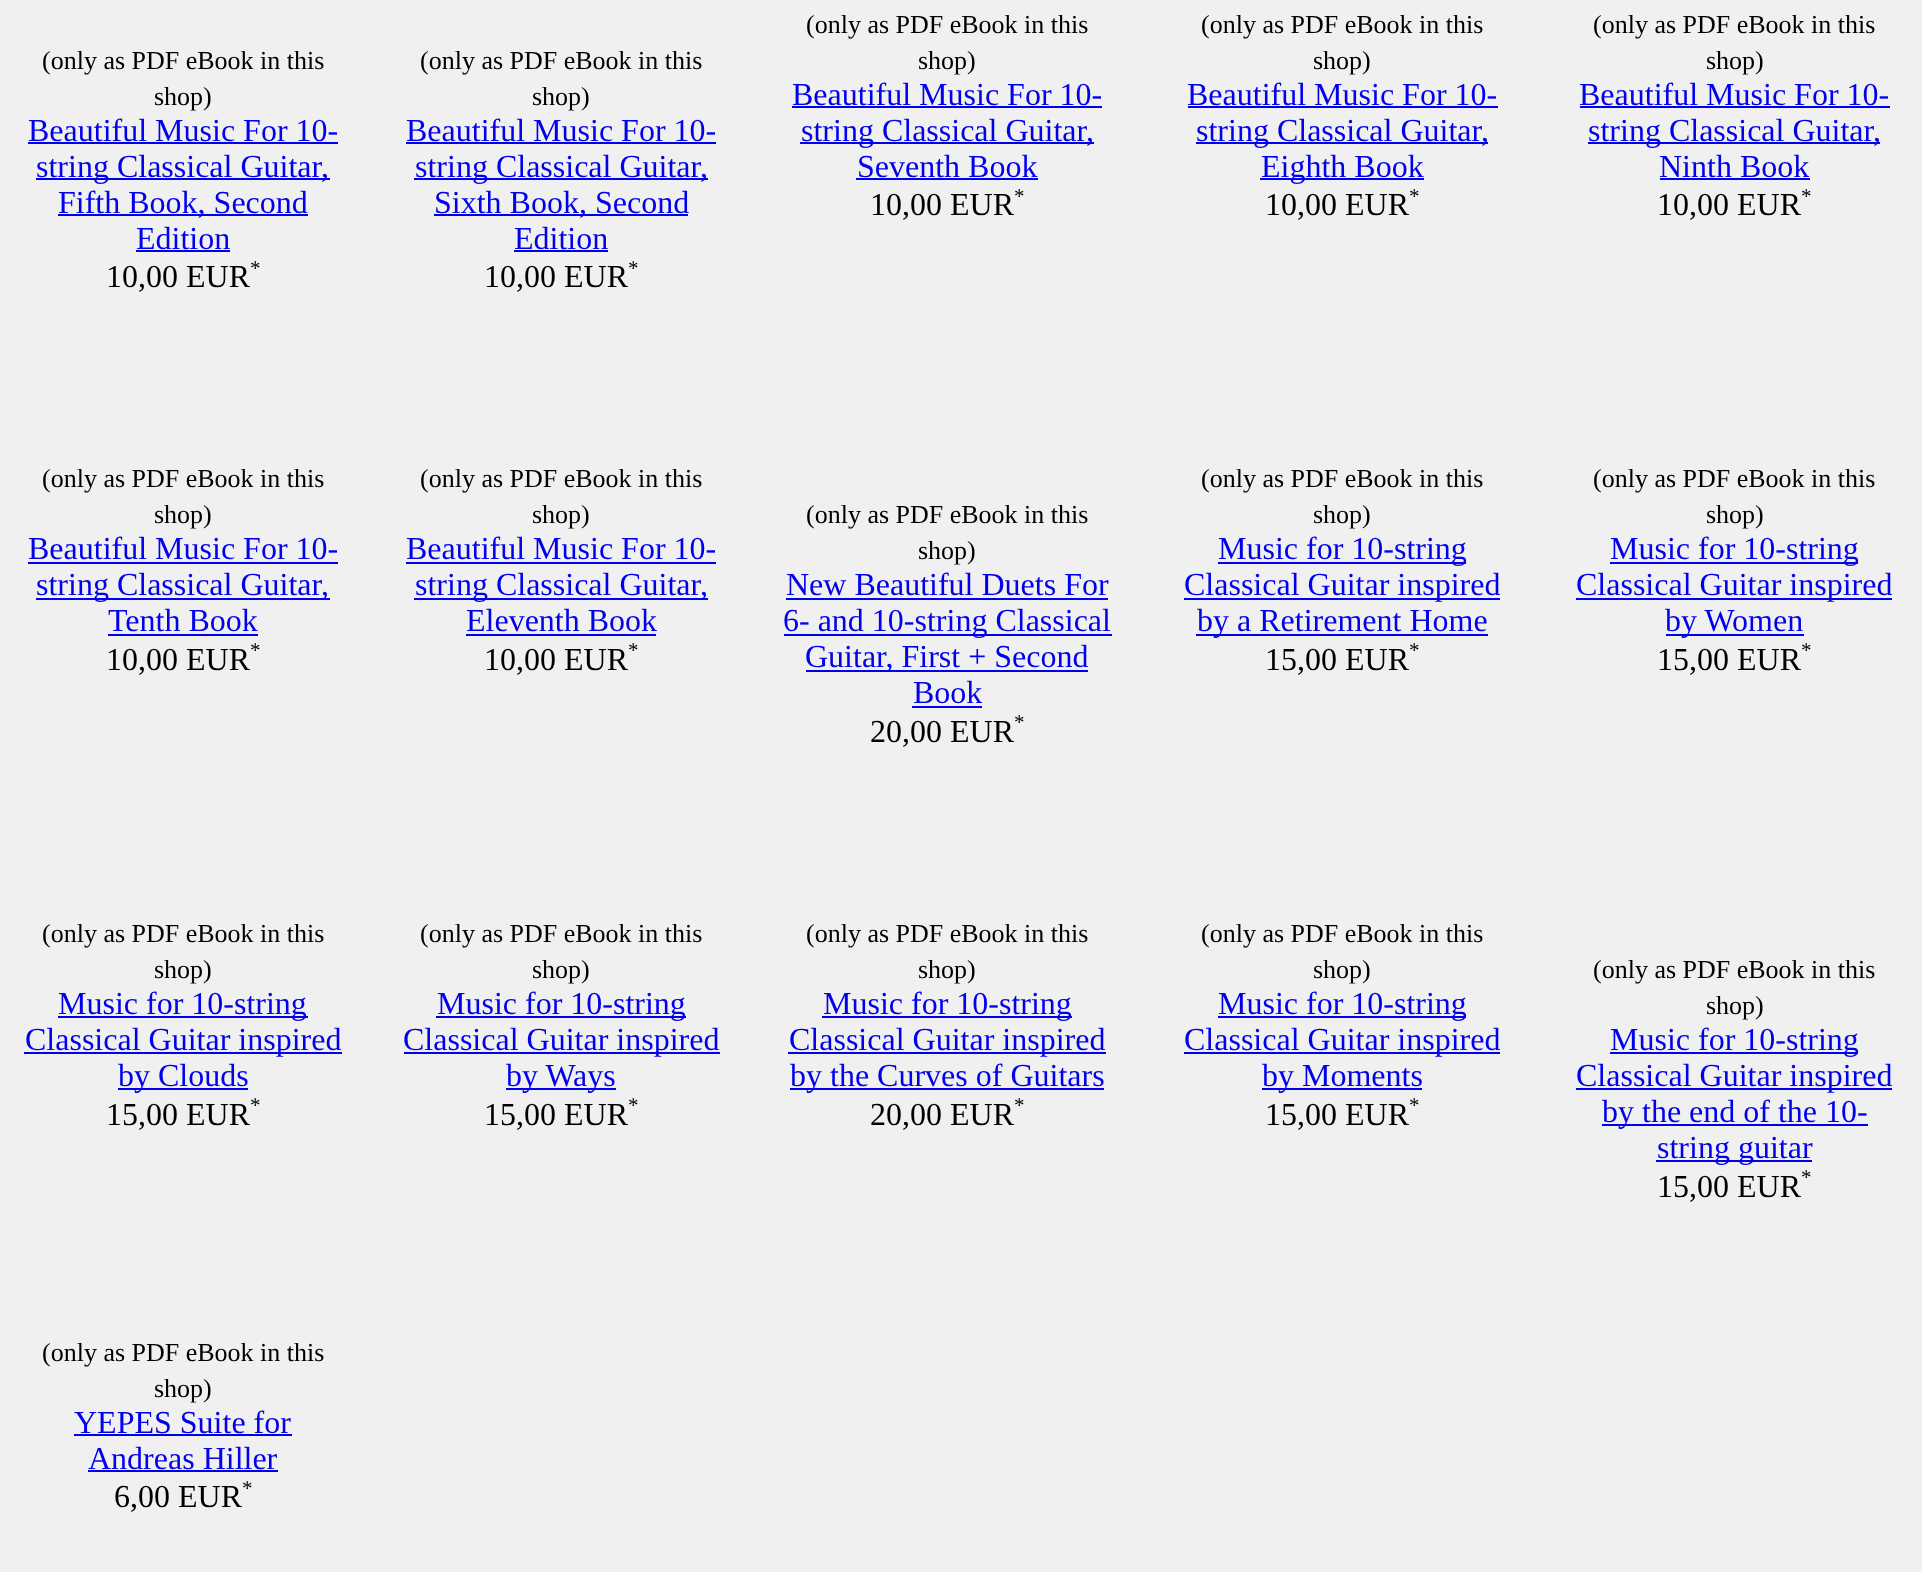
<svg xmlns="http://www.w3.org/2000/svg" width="1922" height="1572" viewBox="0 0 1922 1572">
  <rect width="100%" height="100%" fill="#f0f0f0"/>
  <path d="M28 142h310v2H28z" fill="#00e"/>
  <path d="M36 178h294v2H36z" fill="#00e"/>
  <path d="M58 214h250v2H58z" fill="#00e"/>
  <path d="M136 250h94v2H136z" fill="#00e"/>
  <path d="M406 142h310v2H406z" fill="#00e"/>
  <path d="M414 178h294v2H414z" fill="#00e"/>
  <path d="M434 214h254v2H434z" fill="#00e"/>
  <path d="M514 250h94v2H514z" fill="#00e"/>
  <path d="M792 106h310v2H792z" fill="#00e"/>
  <path d="M800 142h294v2H800z" fill="#00e"/>
  <path d="M856 178h182v2H856z" fill="#00e"/>
  <path d="M1188 106h310v2H1188z" fill="#00e"/>
  <path d="M1196 142h292v2H1196z" fill="#00e"/>
  <path d="M1260 178h164v2H1260z" fill="#00e"/>
  <path d="M1580 106h310v2H1580z" fill="#00e"/>
  <path d="M1588 142h292v2H1588z" fill="#00e"/>
  <path d="M1660 178h150v2H1660z" fill="#00e"/>
  <path d="M28 562h310v2H28z" fill="#00e"/>
  <path d="M36 598h294v2H36z" fill="#00e"/>
  <path d="M108 634h150v2H108z" fill="#00e"/>
  <path d="M406 562h310v2H406z" fill="#00e"/>
  <path d="M414 598h294v2H414z" fill="#00e"/>
  <path d="M466 634h190v2H466z" fill="#00e"/>
  <path d="M786 598h322v2H786z" fill="#00e"/>
  <path d="M784 634h328v2H784z" fill="#00e"/>
  <path d="M806 670h282v2H806z" fill="#00e"/>
  <path d="M912 706h70v2H912z" fill="#00e"/>
  <path d="M1218 562h248v2H1218z" fill="#00e"/>
  <path d="M1184 598h316v2H1184z" fill="#00e"/>
  <path d="M1196 634h292v2H1196z" fill="#00e"/>
  <path d="M1610 562h248v2H1610z" fill="#00e"/>
  <path d="M1576 598h316v2H1576z" fill="#00e"/>
  <path d="M1666 634h138v2H1666z" fill="#00e"/>
  <path d="M58 1016h250v2H58z" fill="#00e"/>
  <path d="M24 1052h318v2H24z" fill="#00e"/>
  <path d="M118 1088h130v2H118z" fill="#00e"/>
  <path d="M436 1016h250v2H436z" fill="#00e"/>
  <path d="M404 1052h316v2H404z" fill="#00e"/>
  <path d="M506 1088h110v2H506z" fill="#00e"/>
  <path d="M822 1016h250v2H822z" fill="#00e"/>
  <path d="M788 1052h318v2H788z" fill="#00e"/>
  <path d="M790 1088h314v2H790z" fill="#00e"/>
  <path d="M1218 1016h248v2H1218z" fill="#00e"/>
  <path d="M1184 1052h316v2H1184z" fill="#00e"/>
  <path d="M1262 1088h160v2H1262z" fill="#00e"/>
  <path d="M1610 1052h248v2H1610z" fill="#00e"/>
  <path d="M1576 1088h316v2H1576z" fill="#00e"/>
  <path d="M1602 1124h266v2H1602z" fill="#00e"/>
  <path d="M1656 1160h156v2H1656z" fill="#00e"/>
  <path d="M74 1434h218v2H74z" fill="#00e"/>
  <path d="M88 1470h190v2H88z" fill="#00e"/>
  <g font-family="Liberation Serif" font-size="26" fill="#000">
    <text x="42" y="69">(only as PDF eBook in this</text>
    <text x="154" y="105">shop)</text>
  </g>
  <g font-family="Liberation Serif" font-size="32" fill="#00e">
    <text x="28" y="141">Beautiful Music For 10-</text>
    <text x="36" y="177">string Classical Guitar,</text>
    <text x="58" y="213">Fifth Book, Second</text>
    <text x="136" y="249">Edition</text>
  </g>
  <text x="106" y="287" font-family="Liberation Serif" font-size="32" fill="#000">10,00 EUR</text>
  <text x="250" y="275" font-family="Liberation Serif" font-size="21" fill="#000">*</text>
  <g font-family="Liberation Serif" font-size="26" fill="#000">
    <text x="420" y="69">(only as PDF eBook in this</text>
    <text x="532" y="105">shop)</text>
  </g>
  <g font-family="Liberation Serif" font-size="32" fill="#00e">
    <text x="406" y="141">Beautiful Music For 10-</text>
    <text x="415" y="177">string Classical Guitar,</text>
    <text x="434" y="213">Sixth Book, Second</text>
    <text x="514" y="249">Edition</text>
  </g>
  <text x="484" y="287" font-family="Liberation Serif" font-size="32" fill="#000">10,00 EUR</text>
  <text x="628" y="275" font-family="Liberation Serif" font-size="21" fill="#000">*</text>
  <g font-family="Liberation Serif" font-size="26" fill="#000">
    <text x="806" y="33">(only as PDF eBook in this</text>
    <text x="918" y="69">shop)</text>
  </g>
  <g font-family="Liberation Serif" font-size="32" fill="#00e">
    <text x="792" y="105">Beautiful Music For 10-</text>
    <text x="801" y="141">string Classical Guitar,</text>
    <text x="857" y="177">Seventh Book</text>
  </g>
  <text x="870" y="215" font-family="Liberation Serif" font-size="32" fill="#000">10,00 EUR</text>
  <text x="1014" y="203" font-family="Liberation Serif" font-size="21" fill="#000">*</text>
  <g font-family="Liberation Serif" font-size="26" fill="#000">
    <text x="1201" y="33">(only as PDF eBook in this</text>
    <text x="1313" y="69">shop)</text>
  </g>
  <g font-family="Liberation Serif" font-size="32" fill="#00e">
    <text x="1187" y="105">Beautiful Music For 10-</text>
    <text x="1196" y="141">string Classical Guitar,</text>
    <text x="1261" y="177">Eighth Book</text>
  </g>
  <text x="1265" y="215" font-family="Liberation Serif" font-size="32" fill="#000">10,00 EUR</text>
  <text x="1409" y="203" font-family="Liberation Serif" font-size="21" fill="#000">*</text>
  <g font-family="Liberation Serif" font-size="26" fill="#000">
    <text x="1593" y="33">(only as PDF eBook in this</text>
    <text x="1706" y="69">shop)</text>
  </g>
  <g font-family="Liberation Serif" font-size="32" fill="#00e">
    <text x="1579" y="105">Beautiful Music For 10-</text>
    <text x="1588" y="141">string Classical Guitar,</text>
    <text x="1659" y="177">Ninth Book</text>
  </g>
  <text x="1657" y="215" font-family="Liberation Serif" font-size="32" fill="#000">10,00 EUR</text>
  <text x="1801" y="203" font-family="Liberation Serif" font-size="21" fill="#000">*</text>
  <g font-family="Liberation Serif" font-size="26" fill="#000">
    <text x="42" y="487">(only as PDF eBook in this</text>
    <text x="154" y="523">shop)</text>
  </g>
  <g font-family="Liberation Serif" font-size="32" fill="#00e">
    <text x="28" y="559">Beautiful Music For 10-</text>
    <text x="36" y="595">string Classical Guitar,</text>
    <text x="108" y="631">Tenth Book</text>
  </g>
  <text x="250" y="657" font-family="Liberation Serif" font-size="21" fill="#000">*</text>
  <text x="106" y="670" font-family="Liberation Serif" font-size="32" fill="#000">10,00 EUR</text>
  <g font-family="Liberation Serif" font-size="26" fill="#000">
    <text x="420" y="487">(only as PDF eBook in this</text>
    <text x="532" y="523">shop)</text>
  </g>
  <g font-family="Liberation Serif" font-size="32" fill="#00e">
    <text x="406" y="559">Beautiful Music For 10-</text>
    <text x="415" y="595">string Classical Guitar,</text>
    <text x="466" y="631">Eleventh Book</text>
  </g>
  <text x="628" y="657" font-family="Liberation Serif" font-size="21" fill="#000">*</text>
  <text x="484" y="670" font-family="Liberation Serif" font-size="32" fill="#000">10,00 EUR</text>
  <g font-family="Liberation Serif" font-size="26" fill="#000">
    <text x="806" y="523">(only as PDF eBook in this</text>
    <text x="918" y="559">shop)</text>
  </g>
  <g font-family="Liberation Serif" font-size="32" fill="#00e">
    <text x="786" y="595">New Beautiful Duets For</text>
    <text x="783" y="631">6- and 10-string Classical</text>
    <text x="805" y="667">Guitar, First + Second</text>
    <text x="913" y="703">Book</text>
  </g>
  <text x="1014" y="729" font-family="Liberation Serif" font-size="21" fill="#000">*</text>
  <text x="870" y="742" font-family="Liberation Serif" font-size="32" fill="#000">20,00 EUR</text>
  <g font-family="Liberation Serif" font-size="26" fill="#000">
    <text x="1201" y="487">(only as PDF eBook in this</text>
    <text x="1313" y="523">shop)</text>
  </g>
  <g font-family="Liberation Serif" font-size="32" fill="#00e">
    <text x="1218" y="559">Music for 10-string</text>
    <text x="1184" y="595">Classical Guitar inspired</text>
    <text x="1197" y="631">by a Retirement Home</text>
  </g>
  <text x="1409" y="657" font-family="Liberation Serif" font-size="21" fill="#000">*</text>
  <text x="1265" y="670" font-family="Liberation Serif" font-size="32" fill="#000">15,00 EUR</text>
  <g font-family="Liberation Serif" font-size="26" fill="#000">
    <text x="1593" y="487">(only as PDF eBook in this</text>
    <text x="1706" y="523">shop)</text>
  </g>
  <g font-family="Liberation Serif" font-size="32" fill="#00e">
    <text x="1610" y="559">Music for 10-string</text>
    <text x="1576" y="595">Classical Guitar inspired</text>
    <text x="1665" y="631">by Women</text>
  </g>
  <text x="1801" y="657" font-family="Liberation Serif" font-size="21" fill="#000">*</text>
  <text x="1657" y="670" font-family="Liberation Serif" font-size="32" fill="#000">15,00 EUR</text>
  <g font-family="Liberation Serif" font-size="26" fill="#000">
    <text x="42" y="942">(only as PDF eBook in this</text>
    <text x="154" y="978">shop)</text>
  </g>
  <g font-family="Liberation Serif" font-size="32" fill="#00e">
    <text x="58" y="1014">Music for 10-string</text>
    <text x="25" y="1050">Classical Guitar inspired</text>
    <text x="118" y="1086">by Clouds</text>
  </g>
  <text x="250" y="1112" font-family="Liberation Serif" font-size="21" fill="#000">*</text>
  <text x="106" y="1125" font-family="Liberation Serif" font-size="32" fill="#000">15,00 EUR</text>
  <g font-family="Liberation Serif" font-size="26" fill="#000">
    <text x="420" y="942">(only as PDF eBook in this</text>
    <text x="532" y="978">shop)</text>
  </g>
  <g font-family="Liberation Serif" font-size="32" fill="#00e">
    <text x="437" y="1014">Music for 10-string</text>
    <text x="403" y="1050">Classical Guitar inspired</text>
    <text x="506" y="1086">by Ways</text>
  </g>
  <text x="628" y="1112" font-family="Liberation Serif" font-size="21" fill="#000">*</text>
  <text x="484" y="1125" font-family="Liberation Serif" font-size="32" fill="#000">15,00 EUR</text>
  <g font-family="Liberation Serif" font-size="26" fill="#000">
    <text x="806" y="942">(only as PDF eBook in this</text>
    <text x="918" y="978">shop)</text>
  </g>
  <g font-family="Liberation Serif" font-size="32" fill="#00e">
    <text x="823" y="1014">Music for 10-string</text>
    <text x="789" y="1050">Classical Guitar inspired</text>
    <text x="790" y="1086">by the Curves of Guitars</text>
  </g>
  <text x="1014" y="1112" font-family="Liberation Serif" font-size="21" fill="#000">*</text>
  <text x="870" y="1125" font-family="Liberation Serif" font-size="32" fill="#000">20,00 EUR</text>
  <g font-family="Liberation Serif" font-size="26" fill="#000">
    <text x="1201" y="942">(only as PDF eBook in this</text>
    <text x="1313" y="978">shop)</text>
  </g>
  <g font-family="Liberation Serif" font-size="32" fill="#00e">
    <text x="1218" y="1014">Music for 10-string</text>
    <text x="1184" y="1050">Classical Guitar inspired</text>
    <text x="1262" y="1086">by Moments</text>
  </g>
  <text x="1409" y="1112" font-family="Liberation Serif" font-size="21" fill="#000">*</text>
  <text x="1265" y="1125" font-family="Liberation Serif" font-size="32" fill="#000">15,00 EUR</text>
  <g font-family="Liberation Serif" font-size="26" fill="#000">
    <text x="1593" y="978">(only as PDF eBook in this</text>
    <text x="1706" y="1014">shop)</text>
  </g>
  <g font-family="Liberation Serif" font-size="32" fill="#00e">
    <text x="1610" y="1050">Music for 10-string</text>
    <text x="1576" y="1086">Classical Guitar inspired</text>
    <text x="1602" y="1122">by the end of the 10-</text>
    <text x="1657" y="1158">string guitar</text>
  </g>
  <text x="1801" y="1184" font-family="Liberation Serif" font-size="21" fill="#000">*</text>
  <text x="1657" y="1197" font-family="Liberation Serif" font-size="32" fill="#000">15,00 EUR</text>
  <g font-family="Liberation Serif" font-size="26" fill="#000">
    <text x="42" y="1361">(only as PDF eBook in this</text>
    <text x="154" y="1397">shop)</text>
  </g>
  <g font-family="Liberation Serif" font-size="32" fill="#00e">
    <text x="74" y="1433">YEPES Suite for</text>
    <text x="88" y="1469">Andreas Hiller</text>
  </g>
  <text x="114" y="1507" font-family="Liberation Serif" font-size="32" fill="#000">6,00 EUR</text>
  <text x="242" y="1495" font-family="Liberation Serif" font-size="21" fill="#000">*</text>
</svg>
